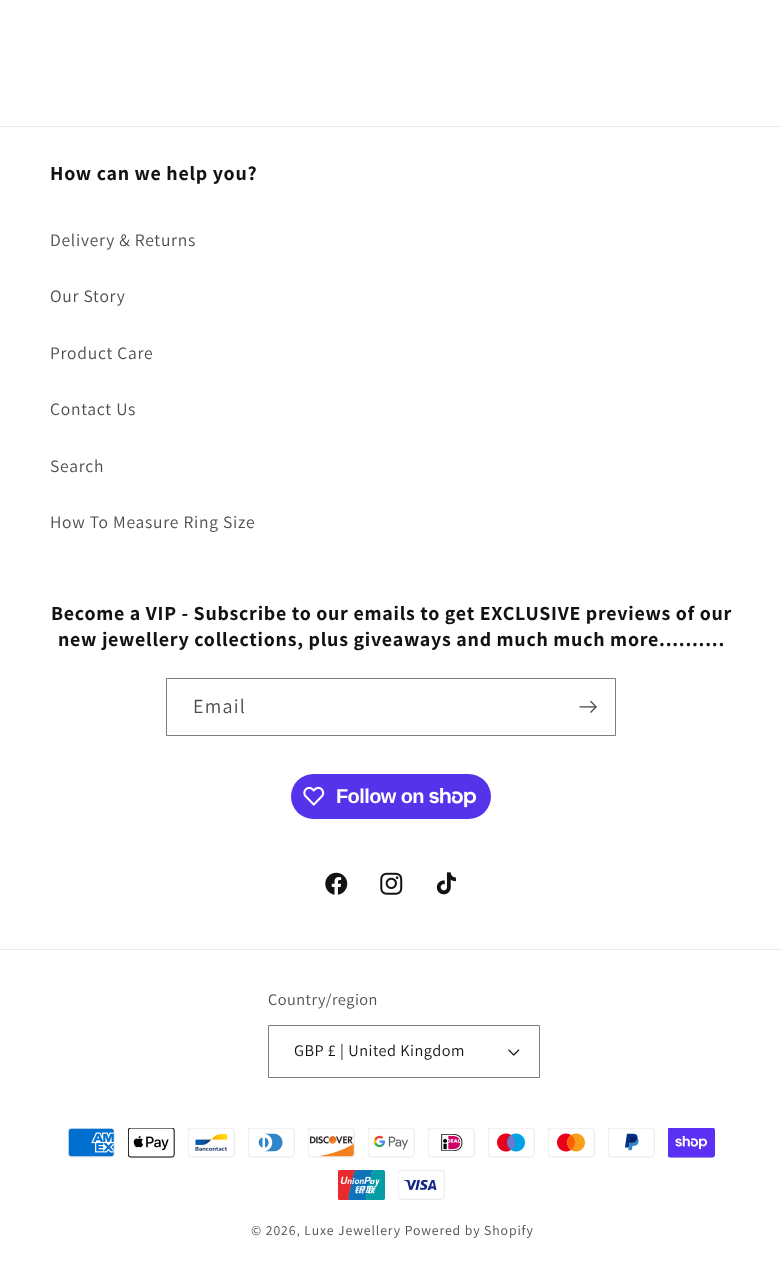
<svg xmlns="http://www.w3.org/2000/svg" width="782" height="1274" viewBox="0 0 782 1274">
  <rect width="100%" height="100%" fill="#fff"/>
  <path d="M0 126h782v1H0z" fill="#ececec"/>
  <path d="M166.5 678.5h449v57H166.5z" fill="none" stroke="#7d7d7d"/>
  <image x="579" y="700" width="18" height="13" href="img/1.png"/>
  <rect x="291" y="774" width="200" height="45" rx="22.5" fill="#5433eb"/>
  <image x="303" y="786" width="22" height="20" href="img/2.png"/>
  <image x="429" y="788" width="47" height="20" href="img/3.png"/>
  <image x="325" y="872" width="23" height="23" href="img/4.png"/>
  <image x="380" y="872" width="23" height="23" href="img/5.png"/>
  <image x="436" y="872" width="20" height="23" href="img/6.png"/>
  <path d="M0 949h782v1H0z" fill="#ececec"/>
  <image x="508" y="1049" width="12" height="7" href="img/7.png"/>
  <path d="M268.5 1025.5h271v52H268.5z" fill="none" stroke="#7d7d7d"/>
  <image x="68" y="1128" width="47" height="30" href="img/8.png"/>
  <image x="128" y="1128" width="47" height="30" href="img/9.png"/>
  <image x="188" y="1128" width="47" height="30" href="img/10.png"/>
  <image x="248" y="1128" width="47" height="30" href="img/11.png"/>
  <image x="308" y="1128" width="47" height="30" href="img/12.png"/>
  <image x="368" y="1128" width="47" height="30" href="img/13.png"/>
  <image x="428" y="1128" width="47" height="30" href="img/14.png"/>
  <image x="488" y="1128" width="47" height="30" href="img/15.png"/>
  <image x="548" y="1128" width="47" height="30" href="img/16.png"/>
  <image x="608" y="1128" width="47" height="30" href="img/17.png"/>
  <image x="668" y="1128" width="47" height="30" href="img/18.png"/>
  <image x="338" y="1170" width="47" height="30" href="img/19.png"/>
  <image x="398" y="1170" width="47" height="30" href="img/20.png"/>
  <text x="50" y="180" font-family="Assistant" font-size="20" font-weight="bold" letter-spacing="0.75" fill="#121212">How can we help you?</text>
  <g font-family="Assistant" font-size="17.5" letter-spacing="0.75" fill="#4d4d4d">
    <text x="50" y="246">Delivery &amp; Returns</text>
    <text x="50" y="302">Our Story</text>
    <text x="50" y="359">Product Care</text>
    <text x="50" y="415">Contact Us</text>
    <text x="50" y="472">Search</text>
    <text x="50" y="528">How To Measure Ring Size</text>
  </g>
  <g font-family="Assistant" font-size="20" font-weight="bold" letter-spacing="0.75" fill="#121212">
    <text x="51" y="620">Become a VIP - Subscribe to our emails to get EXCLUSIVE previews of our</text>
    <text x="58" y="646">new jewellery collections, plus giveaways and much much more..........</text>
  </g>
  <text x="193" y="713" font-family="Assistant" font-size="20" letter-spacing="1.25" fill="#4d4d4d">Email</text>
  <text x="336" y="803" font-family="Liberation Sans" font-size="20" font-weight="bold" letter-spacing="-0.6" fill="#fff">Follow on</text>
  <text x="268" y="1005" font-family="Assistant" font-size="16.25" letter-spacing="0.5" fill="#4d4d4d">Country/region</text>
  <text x="294" y="1056" font-family="Assistant" font-size="16.25" letter-spacing="0.5" fill="#121212">GBP £ | United Kingdom</text>
  <text x="251" y="1235" font-family="Assistant" font-size="13.75" letter-spacing="0.9" fill="#4d4d4d">© 2026, Luxe Jewellery Powered by Shopify</text>
</svg>
